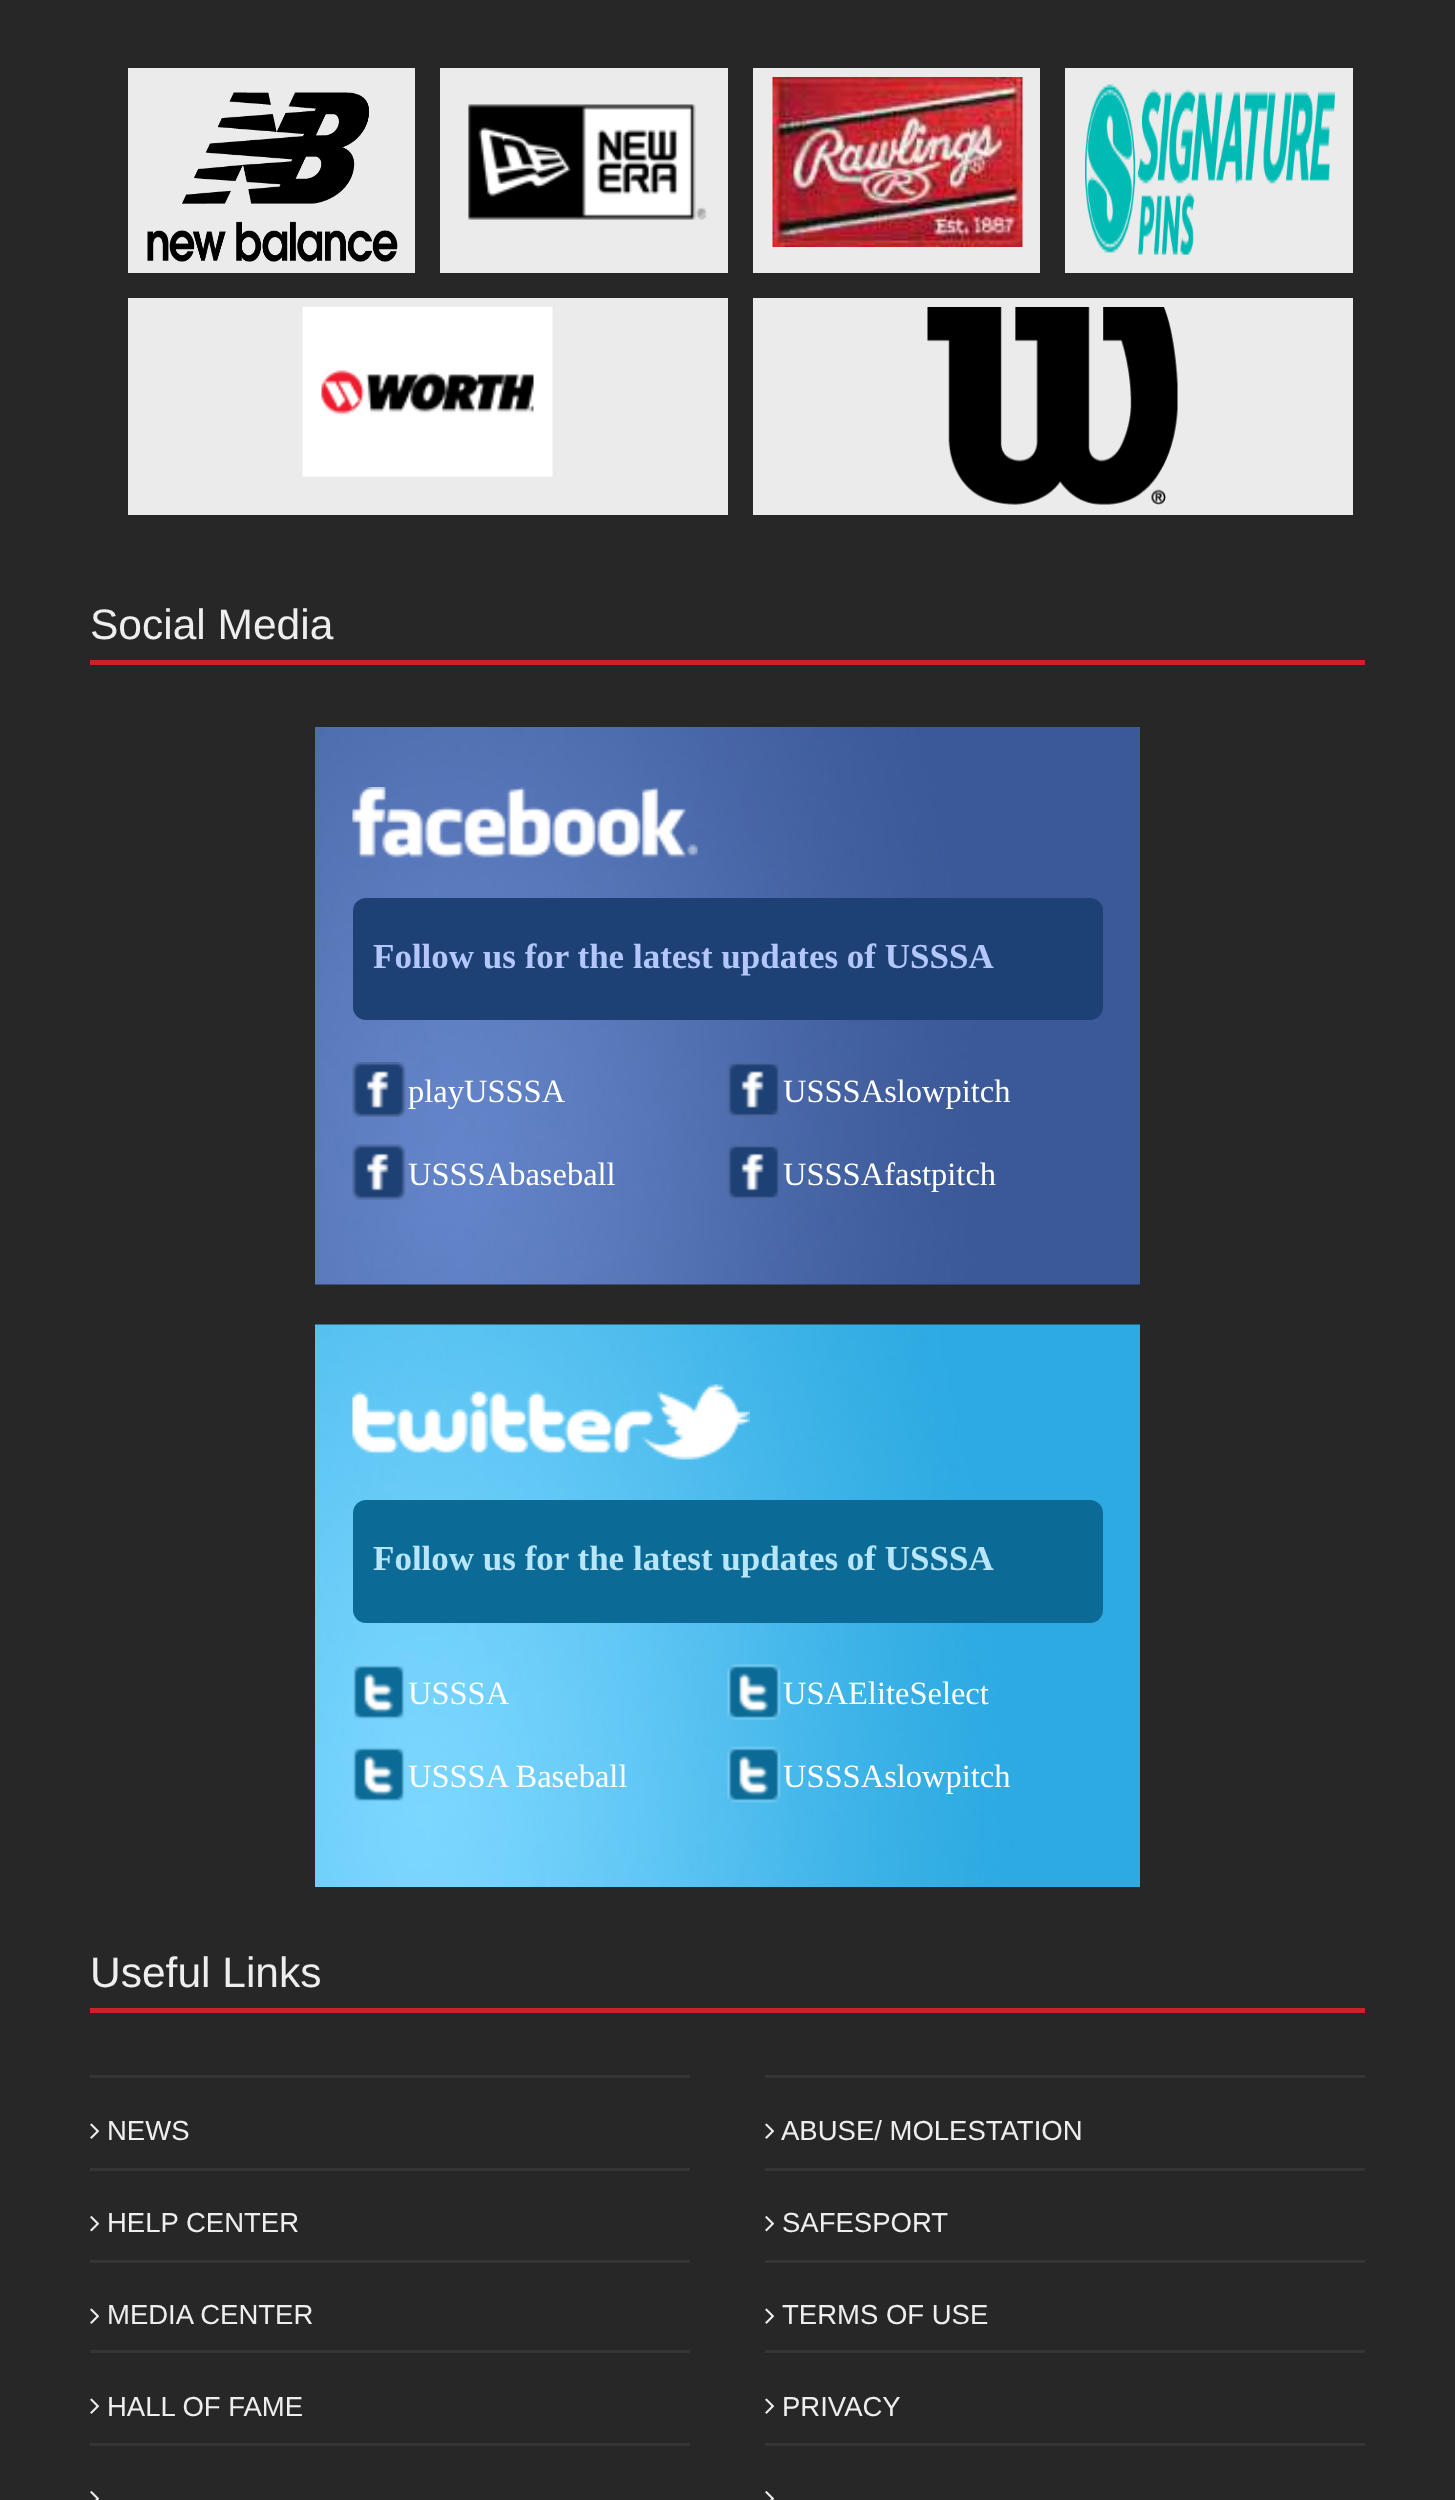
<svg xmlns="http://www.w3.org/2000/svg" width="1455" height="2500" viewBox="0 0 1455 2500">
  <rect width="100%" height="100%" fill="#272727"/>
  <path d="M128 68h287v205H128z" fill="#ebebeb"/>
  <image x="147" y="92" width="251" height="170" href="img/1.png"/>
  <path d="M440 68h288v205H440z" fill="#ebebeb"/>
  <image x="468" y="104" width="239" height="116" href="img/2.png"/>
  <path d="M753 68h287v205H753z" fill="#ebebeb"/>
  <image x="772" y="77" width="251" height="170" href="img/3.png"/>
  <path d="M1065 68h288v205H1065z" fill="#ebebeb"/>
  <image x="1085" y="84" width="250" height="171" href="img/4.png"/>
  <path d="M128 298h600v217H128z" fill="#ebebeb"/>
  <image x="302" y="307" width="251" height="170" href="img/5.png"/>
  <path d="M753 298h600v217H753z" fill="#ebebeb"/>
  <image x="927" y="307" width="251" height="198" href="img/6.png"/>
  <path d="M90 660h1275v5H90z" fill="#cd2128"/>
  <image x="315" y="727" width="825" height="558" href="img/7.png"/>
  <image x="352" y="787" width="346" height="71" href="img/8.png"/>
  <rect x="353" y="898" width="750" height="122" rx="13" fill="#1e4175"/>
  <image x="352" y="1062" width="54" height="55" href="img/9.png"/>
  <image x="727" y="1062" width="53" height="55" href="img/10.png"/>
  <image x="352" y="1144" width="54" height="56" href="img/11.png"/>
  <image x="727" y="1144" width="53" height="56" href="img/12.png"/>
  <image x="315" y="1324" width="825" height="563" href="img/13.png"/>
  <image x="352" y="1383" width="398" height="77" href="img/14.png"/>
  <rect x="353" y="1500" width="750" height="123" rx="13" fill="#0c6b96"/>
  <image x="353" y="1665" width="52" height="55" href="img/15.png"/>
  <image x="727" y="1664" width="54" height="56" href="img/16.png"/>
  <image x="352" y="1747" width="53" height="55" href="img/17.png"/>
  <image x="727" y="1746" width="54" height="57" href="img/18.png"/>
  <path d="M90 2008h1275v5H90z" fill="#cd2128"/>
  <path d="M90 2075h600v3H90z" fill="#353535"/>
  <image x="90" y="2123" width="10" height="16" href="img/19.png"/>
  <path d="M90 2168h600v3H90z" fill="#353535"/>
  <image x="90" y="2216" width="10" height="16" href="img/20.png"/>
  <path d="M90 2260h600v3H90z" fill="#353535"/>
  <image x="90" y="2308" width="10" height="16" href="img/19.png"/>
  <path d="M90 2350h600v3H90z" fill="#353535"/>
  <image x="90" y="2398" width="10" height="16" href="img/19.png"/>
  <path d="M90 2443h600v3H90z" fill="#353535"/>
  <image x="90" y="2491" width="10" height="9" href="img/21.png"/>
  <path d="M765 2075h600v3H765z" fill="#353535"/>
  <image x="765" y="2123" width="10" height="16" href="img/19.png"/>
  <path d="M765 2168h600v3H765z" fill="#353535"/>
  <image x="765" y="2216" width="10" height="16" href="img/20.png"/>
  <path d="M765 2260h600v3H765z" fill="#353535"/>
  <image x="765" y="2308" width="10" height="16" href="img/19.png"/>
  <path d="M765 2350h600v3H765z" fill="#353535"/>
  <image x="765" y="2398" width="10" height="16" href="img/19.png"/>
  <path d="M765 2443h600v3H765z" fill="#353535"/>
  <image x="765" y="2491" width="10" height="9" href="img/21.png"/>
  <text x="90" y="639" font-family="Liberation Sans" font-size="42.5" fill="#eee">Social Media</text>
  <text x="373" y="968" font-family="Liberation Serif" font-size="35" font-weight="bold" fill="#b4c7fc">Follow us for the latest updates of USSSA</text>
  <g font-family="Liberation Serif" font-size="32.5" fill="#fff">
    <text x="408" y="1102">playUSSSA</text>
    <text x="783" y="1102">USSSAslowpitch</text>
    <text x="408" y="1185">USSSAbaseball</text>
    <text x="783" y="1185">USSSAfastpitch</text>
  </g>
  <text x="373" y="1570" font-family="Liberation Serif" font-size="35" font-weight="bold" fill="#b7e5fa">Follow us for the latest updates of USSSA</text>
  <g font-family="Liberation Serif" font-size="32.5" fill="#fff">
    <text x="408" y="1704">USSSA</text>
    <text x="783" y="1704">USAEliteSelect</text>
    <text x="408" y="1787">USSSA Baseball</text>
    <text x="783" y="1787">USSSAslowpitch</text>
  </g>
  <text x="90" y="1987" font-family="Liberation Sans" font-size="42.5" fill="#eee">Useful Links</text>
  <g font-family="Liberation Sans" font-size="27.5" fill="#eee">
    <text x="107" y="2140">NEWS</text>
    <text x="107" y="2232">HELP CENTER</text>
    <text x="107" y="2324">MEDIA CENTER</text>
    <text x="107" y="2416">HALL OF FAME</text>
    <text x="781" y="2140">ABUSE/ MOLESTATION</text>
    <text x="782" y="2232">SAFESPORT</text>
    <text x="782" y="2324">TERMS OF USE</text>
    <text x="782" y="2416">PRIVACY</text>
  </g>
</svg>
